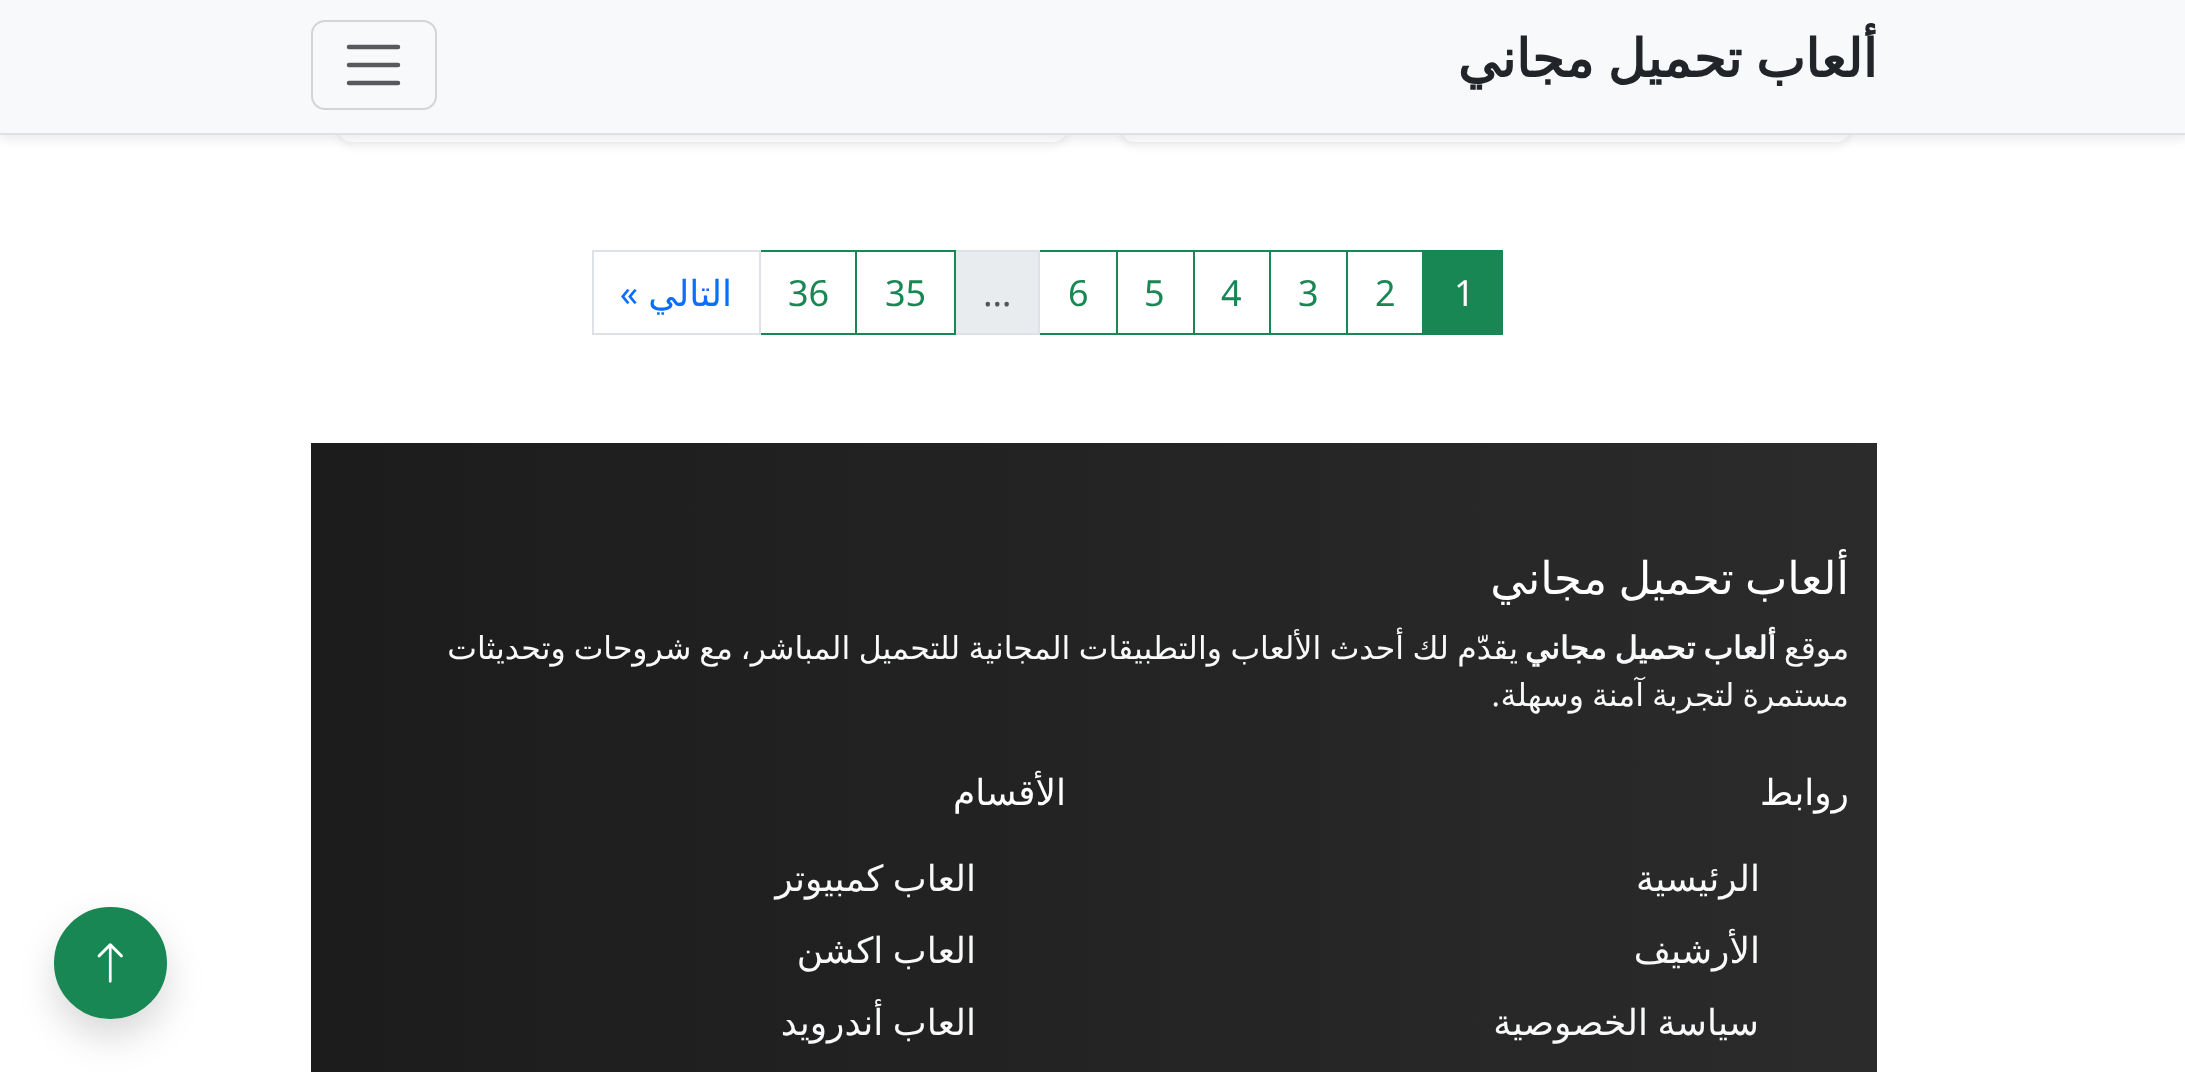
<svg xmlns="http://www.w3.org/2000/svg" width="2185" height="1072" viewBox="0 0 2185 1072">
  <defs>
    <linearGradient id="g1" gradientUnits="userSpaceOnUse" x1="311" y1="1016" x2="1877" y2="1016"><stop offset="0" stop-color="#1c1c1c"/><stop offset="1" stop-color="#2b2b2b"/></linearGradient>
  </defs>
  <rect width="100%" height="100%" fill="#fff"/>
  <rect x="1121" y="-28" width="729" height="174" rx="14" fill="#00000012" filter="blur(4.5px)"/>
  <rect x="1121" y="-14" width="729" height="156" rx="14" fill="#fff"/>
  <rect x="338" y="-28" width="729" height="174" rx="14" fill="#00000012" filter="blur(4.5px)"/>
  <rect x="338" y="-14" width="729" height="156" rx="14" fill="#fff"/>
  <path d="M0 5h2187v135H0z" fill="#00000012" filter="blur(4.5px)"/>
  <path d="M0 0h2185v133H0z" fill="#f8f9fa"/>
  <path d="M0 133h2185v2H0z" fill="#dee2e6"/>
  <rect x="312" y="21" width="124" height="88" rx="13" fill="none" stroke="#d3d4d5" stroke-width="2"/>
  <path d="M349 47H398M349 65H398M349 83H398" fill="none" stroke="#575a5d" stroke-width="4.5" stroke-linecap="round"/>
  <path d="M1424 250h79v85H1424z" fill="#198754"/>
  <path d="M1347 251h76v83H1347z" fill="none" stroke="#198754" stroke-width="2"/>
  <path d="M1270 251h77v83H1270z" fill="none" stroke="#198754" stroke-width="2"/>
  <path d="M1194 251h76v83H1194z" fill="none" stroke="#198754" stroke-width="2"/>
  <path d="M1117 251h77v83H1117z" fill="none" stroke="#198754" stroke-width="2"/>
  <path d="M1038 251h79v83H1038z" fill="none" stroke="#198754" stroke-width="2"/>
  <path d="M955 251h84v83H955z" fill="#e9ecef" stroke="#dee2e6" stroke-width="2"/>
  <path d="M856 251h99v83H856z" fill="none" stroke="#198754" stroke-width="2"/>
  <path d="M759 251h97v83H759z" fill="none" stroke="#198754" stroke-width="2"/>
  <path d="M758 252h1v81H758z" fill="#fff"/>
  <path d="M593 251h167v83H593z" fill="none" stroke="#dee2e6" stroke-width="2"/>
  <path d="M311 443h1566v629H311z" fill="url(#g1)"/>
  <rect x="54" y="925" width="113" height="112" rx="56" fill="#00000026" filter="blur(18px)"/>
  <rect x="55" y="908" width="111" height="110" rx="55" fill="#198754" stroke="#198754" stroke-width="2"/>
  <image x="97" y="943" width="26" height="40" href="img/1.png"/>
  <text x="1877" y="77" word-spacing="-3" font-family="DejaVu Sans" font-size="52.5" font-weight="bold" direction="rtl" fill="#212529">ألعاب تحميل مجاني</text>
  <text x="1454" y="306" font-family="Noto Sans" font-size="36" fill="#fff">1</text>
  <g font-family="Noto Sans" font-size="36" fill="#198754">
    <text x="1375" y="306">2</text>
    <text x="1298" y="306">3</text>
    <text x="1221" y="306">4</text>
    <text x="1144" y="306">5</text>
    <text x="1068" y="306">6</text>
  </g>
  <text x="983" y="306" font-family="Noto Sans" font-size="36" fill="#53575b">…</text>
  <g font-family="Noto Sans" font-size="36" fill="#198754">
    <text x="885" y="306">35</text>
    <text x="788" y="306">36</text>
  </g>
  <text x="732" y="306" font-family="DejaVu Sans" font-size="36" direction="rtl" fill="#0d6efd">التالي</text>
  <text x="638" y="306" font-family="Noto Sans" font-size="36" direction="rtl" fill="#0d6efd">»</text>
  <text x="1849" y="594" word-spacing="-3" font-family="DejaVu Sans" font-size="45" direction="rtl" fill="#fff">ألعاب تحميل مجاني</text>
  <text x="1849" y="659" font-family="DejaVu Sans" font-size="31.5" direction="rtl" fill="#f8f9fa">موقع</text>
  <text x="1776" y="659" word-spacing="-2" font-family="DejaVu Sans" font-size="31.5" font-weight="bold" direction="rtl" fill="#f8f9fa">ألعاب تحميل مجاني</text>
  <g font-family="DejaVu Sans" font-size="31.5" direction="rtl" fill="#f8f9fa">
    <text x="1518" y="659" word-spacing="-1.5">يقدّم لك أحدث الألعاب والتطبيقات المجانية للتحميل المباشر،</text>
    <text x="733" y="659" word-spacing="-2">مع شروحات وتحديثات</text>
    <text x="1849" y="706" word-spacing="-2">مستمرة لتجربة آمنة وسهلة</text>
  </g>
  <text x="1500" y="706" font-family="Noto Sans" font-size="31.5" direction="rtl" fill="#f8f9fa">.</text>
  <text x="1849" y="805" font-family="DejaVu Sans" font-size="36" direction="rtl" fill="#fff">روابط</text>
  <g font-family="DejaVu Sans" font-size="36" direction="rtl" fill="#f8f9fa">
    <text x="1760" y="891">الرئيسية</text>
    <text x="1760" y="963">الأرشيف</text>
    <text x="1759" y="1035" word-spacing="-2">سياسة الخصوصية</text>
  </g>
  <text x="1066" y="805" font-family="DejaVu Sans" font-size="36" direction="rtl" fill="#fff">الأقسام</text>
  <g font-family="DejaVu Sans" font-size="36" direction="rtl" fill="#f8f9fa">
    <text x="976" y="891" word-spacing="-2">العاب كمبيوتر</text>
    <text x="976" y="963" word-spacing="-2">العاب اكشن</text>
    <text x="976" y="1035" word-spacing="-2">العاب أندرويد</text>
  </g>
</svg>
